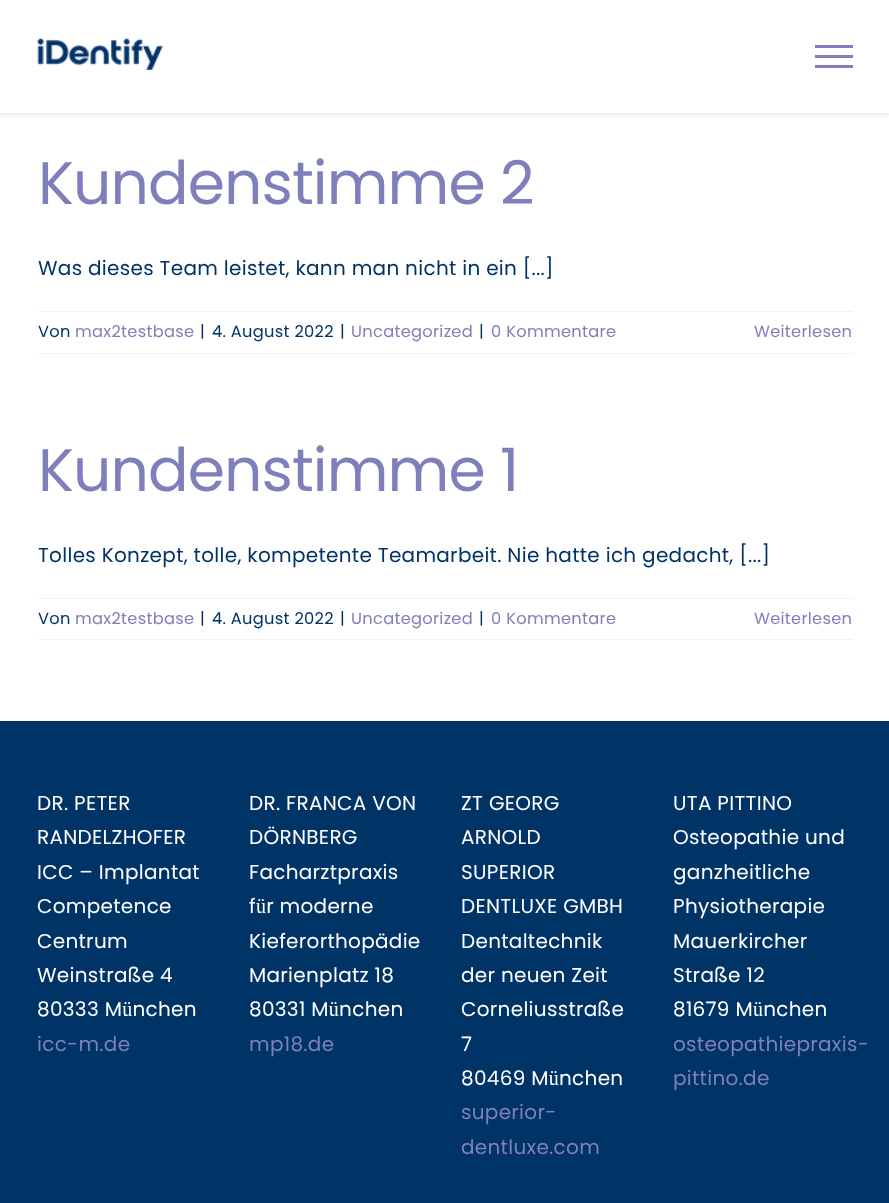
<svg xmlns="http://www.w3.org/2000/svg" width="889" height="1203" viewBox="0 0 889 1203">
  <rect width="100%" height="100%" fill="#fff"/>
  <path d="M0 1h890v113H0z" fill="#0000001f" filter="blur(2px)"/>
  <path d="M0 0h889v113H0z" fill="#fff"/>
  <image x="37" y="38" width="126" height="32" href="img/1.png"/>
  <path d="M815 45h38v3H815z" fill="#7f7fbc"/>
  <path d="M815 55h38v3H815z" fill="#7f7fbc"/>
  <path d="M815 65h38v3H815z" fill="#7f7fbc"/>
  <path d="M38 311h815v1H38z" fill="#f2f3f5"/>
  <path d="M38 353h815v1H38z" fill="#f2f3f5"/>
  <path d="M38 598h815v1H38z" fill="#f2f3f5"/>
  <path d="M38 639h815v1H38z" fill="#f2f3f5"/>
  <path d="M0 721h889v482H0z" fill="#036"/>
  <text x="38" y="204" font-family="Poppins" font-size="60" letter-spacing="-0.9" fill="#7f7fbc">Kundenstimme 2</text>
  <text x="38" y="275" font-family="Poppins" font-size="20" letter-spacing="0.3" fill="#036">Was dieses Team leistet, kann man nicht in ein [...]</text>
  <text x="38" y="337" font-family="Poppins" font-size="16.25" letter-spacing="0.3" fill="#036">Von</text>
  <text x="75" y="337" font-family="Poppins" font-size="16.25" letter-spacing="0.3" fill="#7f7fbc">max2testbase</text>
  <g font-family="Poppins" font-size="16.25" letter-spacing="0.3" fill="#036">
    <text x="200" y="337">|</text>
    <text x="212" y="337">4. August 2022</text>
    <text x="340" y="337">|</text>
  </g>
  <text x="351" y="337" font-family="Poppins" font-size="16.25" letter-spacing="0.3" fill="#7f7fbc">Uncategorized</text>
  <text x="479" y="337" font-family="Poppins" font-size="16.25" letter-spacing="0.3" fill="#036">|</text>
  <g font-family="Poppins" font-size="16.25" letter-spacing="0.3" fill="#7f7fbc">
    <text x="491" y="337">0 Kommentare</text>
    <text x="754" y="337">Weiterlesen</text>
  </g>
  <text x="38" y="491" font-family="Poppins" font-size="60" letter-spacing="-0.9" fill="#7f7fbc">Kundenstimme 1</text>
  <text x="38" y="562" font-family="Poppins" font-size="20" letter-spacing="0.3" fill="#036">Tolles Konzept, tolle, kompetente Teamarbeit. Nie hatte ich gedacht, [...]</text>
  <text x="38" y="624" font-family="Poppins" font-size="16.25" letter-spacing="0.3" fill="#036">Von</text>
  <text x="75" y="624" font-family="Poppins" font-size="16.25" letter-spacing="0.3" fill="#7f7fbc">max2testbase</text>
  <g font-family="Poppins" font-size="16.25" letter-spacing="0.3" fill="#036">
    <text x="200" y="624">|</text>
    <text x="212" y="624">4. August 2022</text>
    <text x="340" y="624">|</text>
  </g>
  <text x="351" y="624" font-family="Poppins" font-size="16.25" letter-spacing="0.3" fill="#7f7fbc">Uncategorized</text>
  <text x="479" y="624" font-family="Poppins" font-size="16.25" letter-spacing="0.3" fill="#036">|</text>
  <g font-family="Poppins" font-size="16.25" letter-spacing="0.3" fill="#7f7fbc">
    <text x="491" y="624">0 Kommentare</text>
    <text x="754" y="624">Weiterlesen</text>
  </g>
  <g font-family="Poppins" font-size="20" letter-spacing="0.3" fill="#fff">
    <text x="37" y="810">DR. PETER</text>
    <text x="37" y="844">RANDELZHOFER</text>
    <text x="37" y="879">ICC – Implantat</text>
    <text x="37" y="913">Competence</text>
    <text x="37" y="948">Centrum</text>
    <text x="37" y="982">Weinstraße 4</text>
    <text x="37" y="1016">80333 München</text>
  </g>
  <text x="37" y="1051" font-family="Poppins" font-size="20" letter-spacing="0.3" fill="#7f7fbc">icc-m.de</text>
  <g font-family="Poppins" font-size="20" letter-spacing="0.3" fill="#fff">
    <text x="249" y="810">DR. FRANCA VON</text>
    <text x="249" y="844">DÖRNBERG</text>
    <text x="249" y="879">Facharztpraxis</text>
    <text x="249" y="913">für moderne</text>
    <text x="249" y="948">Kieferorthopädie</text>
    <text x="249" y="982">Marienplatz 18</text>
    <text x="249" y="1016">80331 München</text>
  </g>
  <text x="249" y="1051" font-family="Poppins" font-size="20" letter-spacing="0.3" fill="#7f7fbc">mp18.de</text>
  <g font-family="Poppins" font-size="20" letter-spacing="0.3" fill="#fff">
    <text x="461" y="810">ZT GEORG</text>
    <text x="461" y="844">ARNOLD</text>
    <text x="461" y="879">SUPERIOR</text>
    <text x="461" y="913">DENTLUXE GMBH</text>
    <text x="461" y="948">Dentaltechnik</text>
    <text x="461" y="982">der neuen Zeit</text>
    <text x="461" y="1016">Corneliusstraße</text>
    <text x="461" y="1051">7</text>
    <text x="461" y="1085">80469 München</text>
  </g>
  <g font-family="Poppins" font-size="20" letter-spacing="0.3" fill="#7f7fbc">
    <text x="461" y="1119">superior-</text>
    <text x="461" y="1154">dentluxe.com</text>
  </g>
  <g font-family="Poppins" font-size="20" letter-spacing="0.3" fill="#fff">
    <text x="673" y="810">UTA PITTINO</text>
    <text x="673" y="844">Osteopathie und</text>
    <text x="673" y="879">ganzheitliche</text>
    <text x="673" y="913">Physiotherapie</text>
    <text x="673" y="948">Mauerkircher</text>
    <text x="673" y="982">Straße 12</text>
    <text x="673" y="1016">81679 München</text>
  </g>
  <g font-family="Poppins" font-size="20" letter-spacing="0.3" fill="#7f7fbc">
    <text x="673" y="1051">osteopathiepraxis-</text>
    <text x="673" y="1085">pittino.de</text>
  </g>
</svg>
